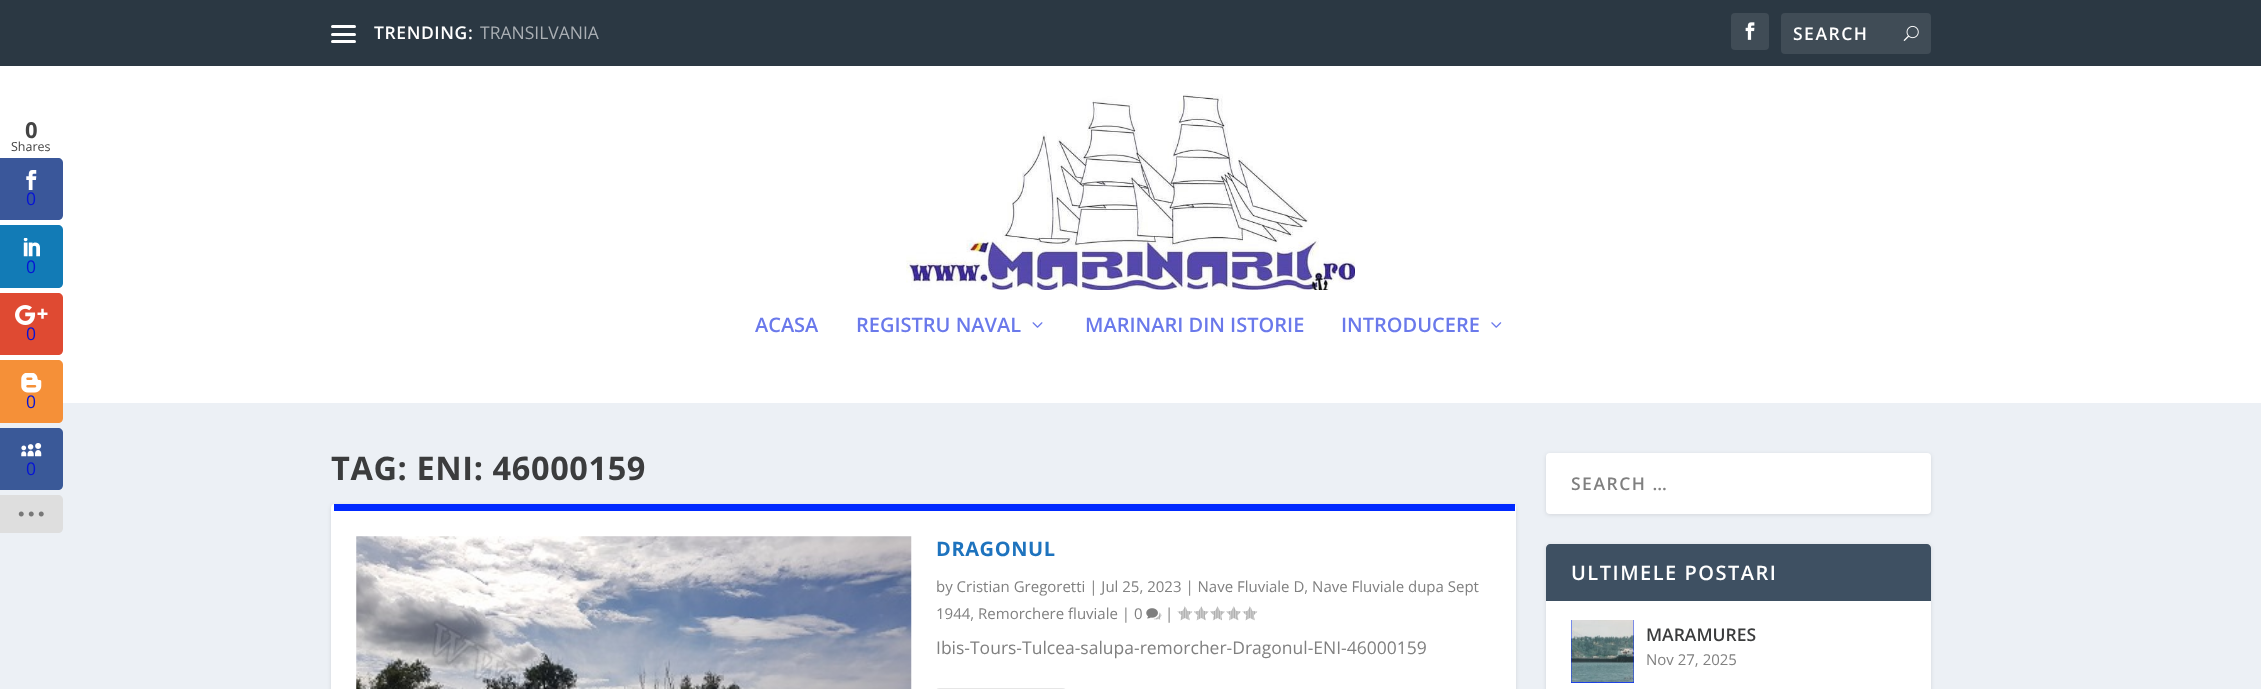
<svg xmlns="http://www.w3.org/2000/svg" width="2261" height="689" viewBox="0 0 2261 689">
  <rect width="100%" height="100%" fill="#ecf0f5"/>
  <path d="M0 66h2261v337H0z" fill="#fff"/>
  <path d="M0 158H58C61 158 63 160 63 163V215C63 218 61 220 58 220H0Z" fill="#3a579a"/>
  <image x="26" y="170" width="11" height="20" href="img/1.png"/>
  <path d="M0 225H58C61 225 63 227 63 230V283C63 286 61 288 58 288H0Z" fill="#127bb6"/>
  <image x="23" y="238" width="17" height="19" href="img/2.png"/>
  <path d="M0 293H58C61 293 63 295 63 298V350C63 353 61 355 58 355H0Z" fill="#df4a32"/>
  <image x="15" y="305" width="33" height="20" href="img/3.png"/>
  <path d="M0 360H58C61 360 63 362 63 365V418C63 421 61 423 58 423H0Z" fill="#f59038"/>
  <image x="21" y="373" width="21" height="20" href="img/4.png"/>
  <path d="M0 428H58C61 428 63 430 63 433V485C63 488 61 490 58 490H0Z" fill="#3a5998"/>
  <image x="21" y="443" width="21" height="14" href="img/5.png"/>
  <path d="M0 495H58C61 495 63 497 63 500V528C63 531 61 533 58 533H0Z" fill="#dedede"/>
  <image x="18" y="511" width="26" height="6" href="img/6.png"/>
  <path d="M0 0h2261v66H0z" fill="#2b3843"/>
  <rect x="331" y="25" width="25" height="3" rx="1.5" fill="#fff"/>
  <rect x="331" y="33" width="25" height="3" rx="1.5" fill="#fff"/>
  <rect x="331" y="40" width="25" height="3" rx="1.5" fill="#fff"/>
  <rect x="1731" y="13" width="38" height="37" rx="4" fill="#404c56"/>
  <image x="1745" y="22" width="10" height="18" href="img/7.png"/>
  <rect x="1781" y="13" width="150" height="41" rx="4" fill="#404c56"/>
  <image x="1903" y="25" width="16" height="16" href="img/8.png"/>
  <image x="906" y="94" width="449" height="196" href="img/9.png"/>
  <image x="1032" y="322" width="11" height="6" href="img/10.png"/>
  <image x="1491" y="322" width="11" height="6" href="img/11.png"/>
  <rect x="331" y="505" width="1185" height="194" rx="4" fill="#0000001a" filter="blur(2px)"/>
  <rect x="331" y="504" width="1185" height="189" rx="4" fill="#fff"/>
  <path d="M334 504h1181v7H334z" fill="#0029ff"/>
  <image x="356" y="536" width="556" height="153" href="img/12.png"/>
  <image x="1146" y="608" width="16" height="12" href="img/13.png"/>
  <image x="1177" y="606" width="16" height="15" href="img/14.png"/>
  <image x="1194" y="606" width="15" height="15" href="img/15.png"/>
  <image x="1210" y="606" width="15" height="15" href="img/16.png"/>
  <image x="1226" y="606" width="15" height="15" href="img/17.png"/>
  <image x="1242" y="606" width="16" height="15" href="img/14.png"/>
  <rect x="936" y="688" width="130" height="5" rx="4" fill="#e6e6e6"/>
  <rect x="1546" y="454" width="385" height="61" rx="4" fill="#0000001a" filter="blur(2px)"/>
  <rect x="1546" y="453" width="385" height="61" rx="4" fill="#fff"/>
  <rect x="1546" y="545" width="385" height="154" rx="4" fill="#0000001a" filter="blur(2px)"/>
  <rect x="1546" y="544" width="385" height="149" rx="4" fill="#fff"/>
  <path d="M1550 544H1927C1929 544 1931 546 1931 548V601H1546V548C1546 546 1548 544 1550 544Z" fill="#3e5062"/>
  <path d="M1571 620h63v63H1571z" fill="#0029ff"/>
  <image x="1571" y="620" width="63" height="63" href="img/18.png"/>
  <text x="25" y="138" font-family="Open Sans" font-size="22" font-weight="bold" fill="#444">0</text>
  <text x="11" y="151" font-family="Open Sans" font-size="12.5" fill="#444">Shares</text>
  <g font-family="Open Sans" font-size="17.5" fill="#0614d6">
    <text x="26" y="205">0</text>
    <text x="26" y="273">0</text>
    <text x="26" y="340">0</text>
    <text x="26" y="408">0</text>
    <text x="26" y="475">0</text>
  </g>
  <text x="374" y="39" font-family="Open Sans" font-size="17.5" font-weight="600" letter-spacing="0.6" fill="#fff">TRENDING:</text>
  <text x="480" y="39" font-family="Open Sans" font-size="17.5" fill="#aaafb4">TRANSILVANIA</text>
  <text x="1793" y="40" font-family="Open Sans" font-size="17.5" font-weight="600" letter-spacing="1.5" fill="#fff">SEARCH</text>
  <g font-family="Open Sans" font-size="20" font-weight="600" fill="#6a79eb">
    <text x="755" y="332">ACASA</text>
    <text x="856" y="332">REGISTRU NAVAL</text>
    <text x="1085" y="332">MARINARI DIN ISTORIE</text>
    <text x="1341" y="332">INTRODUCERE</text>
  </g>
  <text x="331" y="480" font-family="Open Sans" font-size="32.5" font-weight="bold" letter-spacing="0.6" fill="#3b3c3d">TAG: ENI: 46000159</text>
  <text x="936" y="556" font-family="Open Sans" font-size="20" font-weight="bold" letter-spacing="0.6" fill="#1e73be">DRAGONUL</text>
  <g font-family="Open Sans" font-size="15" fill="#808080">
    <text x="936" y="592">by Cristian Gregoretti | Jul 25, 2023 | Nave Fluviale D, Nave Fluviale dupa Sept</text>
    <text x="936" y="619">1944, Remorchere fluviale | 0</text>
    <text x="1165" y="619">|</text>
  </g>
  <text x="936" y="654" font-family="Open Sans" font-size="17.5" fill="#808080">Ibis-Tours-Tulcea-salupa-remorcher-Dragonul-ENI-46000159</text>
  <text x="1571" y="490" font-family="Open Sans" font-size="17.5" font-weight="600" letter-spacing="1.5" fill="#808080">SEARCH …</text>
  <text x="1571" y="580" font-family="Open Sans" font-size="20" font-weight="600" letter-spacing="1.5" fill="#fff">ULTIMELE POSTARI</text>
  <text x="1646" y="641" font-family="Open Sans" font-size="17.5" font-weight="600" fill="#3b3c3d">MARAMURES</text>
  <text x="1646" y="665" font-family="Open Sans" font-size="15" fill="#808080">Nov 27, 2025</text>
</svg>
